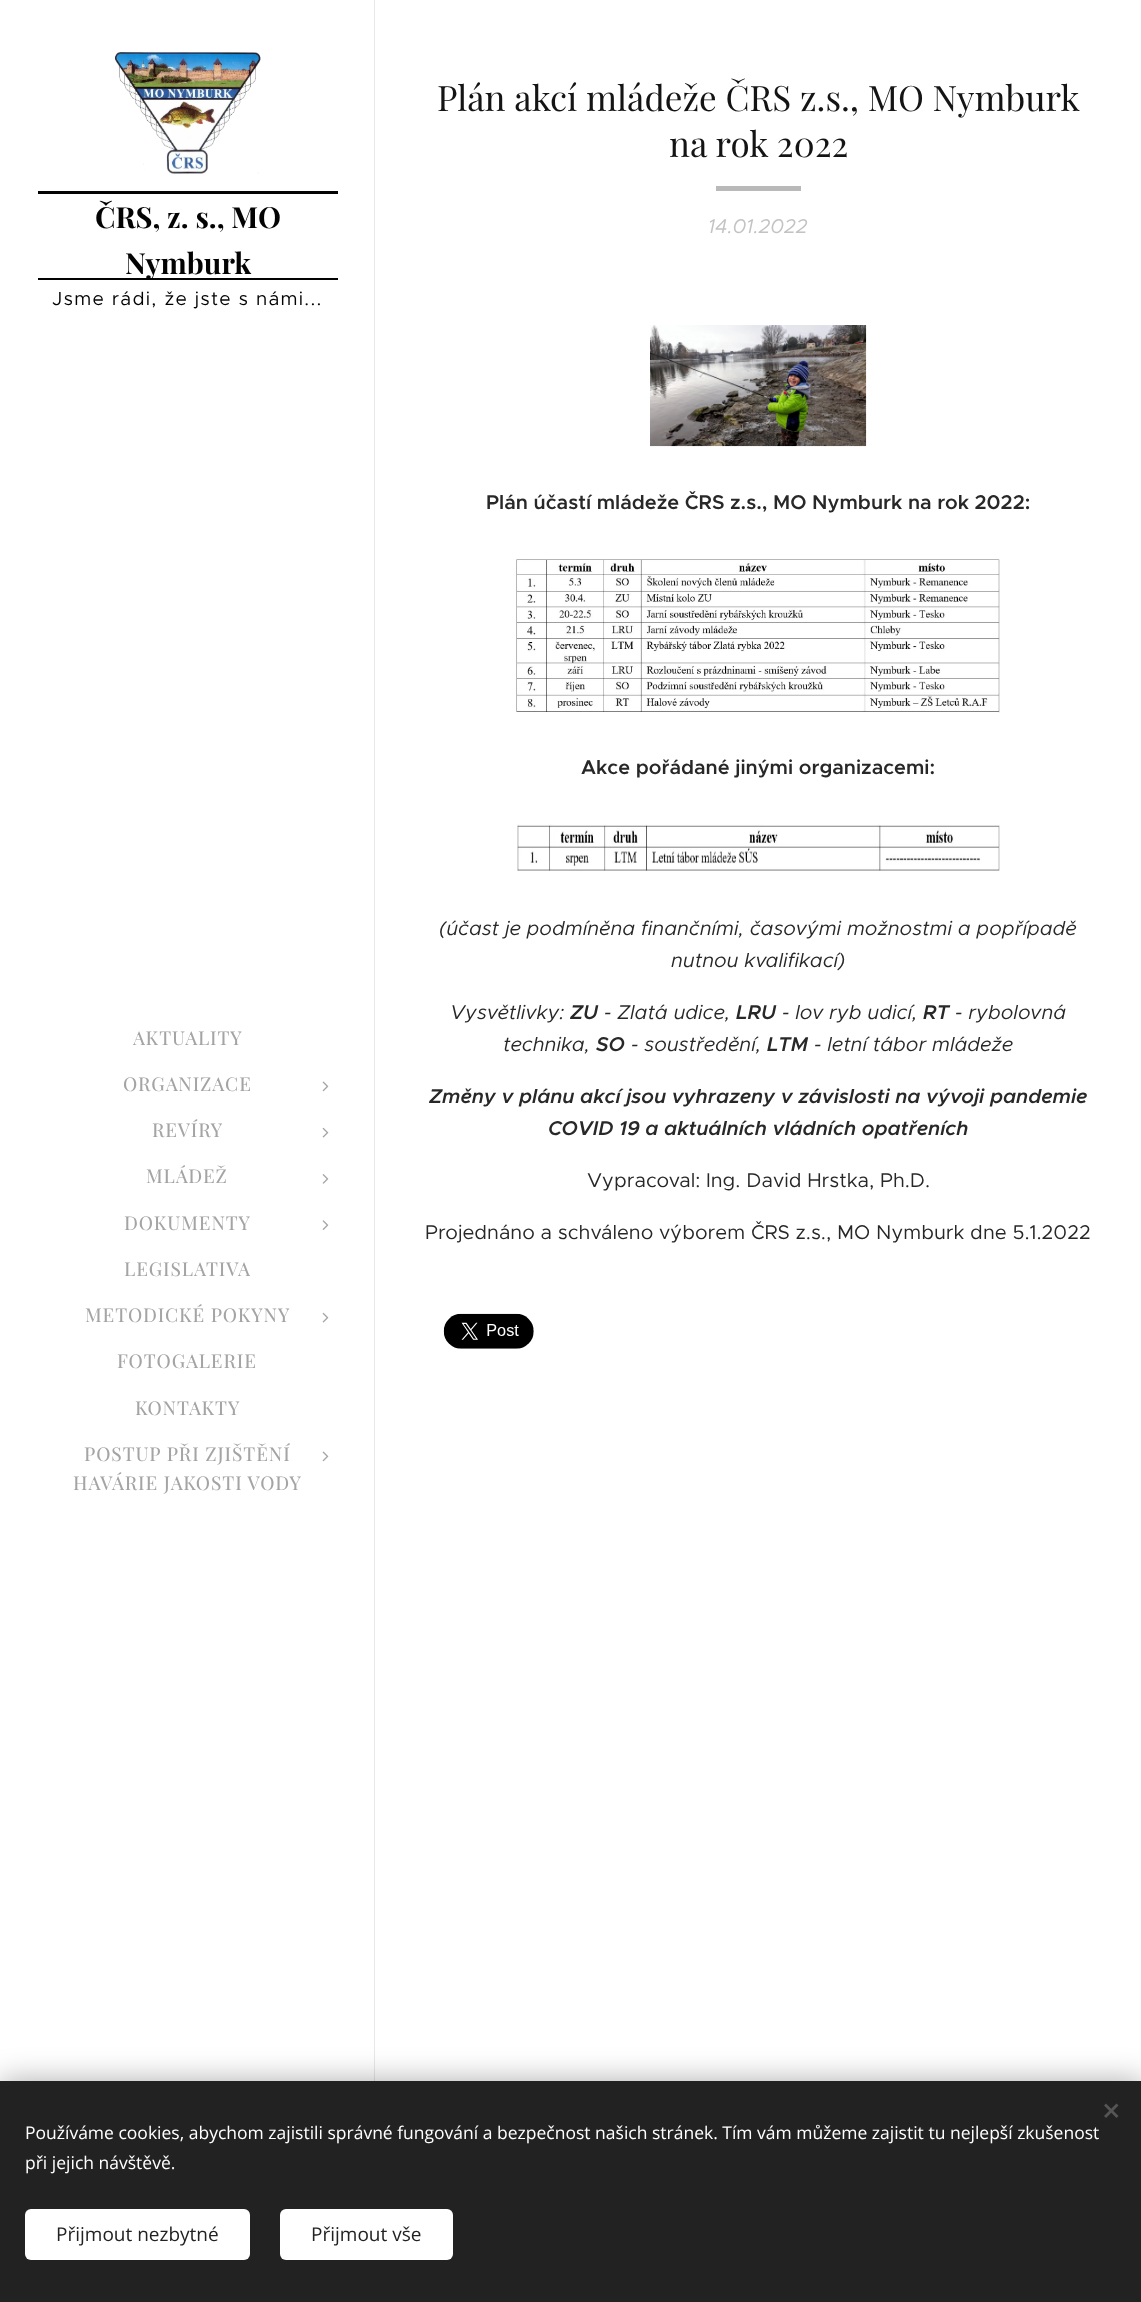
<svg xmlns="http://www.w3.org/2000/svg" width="1141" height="2302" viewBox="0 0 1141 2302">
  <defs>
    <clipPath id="clip1"><path d="M38 194h300v84H38z"/></clipPath>
  </defs>
  <rect width="100%" height="100%" fill="#fff"/>
  <image x="114" y="52" width="147" height="122" href="img/1.png"/>
  <path d="M38 191h300v3H38z" fill="#030303"/>
  <path d="M38 278h300v2H38z" fill="#030303"/>
  <image x="322" y="1081" width="7" height="11" href="img/2.png"/>
  <image x="322" y="1127" width="7" height="11" href="img/3.png"/>
  <image x="322" y="1174" width="7" height="10" href="img/4.png"/>
  <image x="322" y="1220" width="7" height="10" href="img/5.png"/>
  <image x="322" y="1312" width="7" height="11" href="img/3.png"/>
  <image x="322" y="1451" width="7" height="11" href="img/2.png"/>
  <path d="M374 0h1v2081H374z" fill="#e8e8e8"/>
  <path d="M716 186h85v5H716z" fill="#b9b9b9"/>
  <image x="650" y="325" width="217" height="122" href="img/6.png"/>
  <image x="516" y="559" width="484" height="154" href="img/7.png"/>
  <image x="517" y="824" width="483" height="47" href="img/8.png"/>
  <image x="443" y="1313" width="91" height="36" href="img/9.png"/>
  <path d="M0 2081h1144v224H0z" fill="#00000054" filter="blur(15.5px)"/>
  <path d="M0 2081h1141v221H0z" fill="#222"/>
  <path d="M1104 2116L1116.5 2103.5L1118.5 2105.5L1106 2118Z" fill="#555"/>
  <path d="M1106 2103.5L1118.5 2116L1116.5 2118L1104 2105.5Z" fill="#555"/>
  <rect x="25" y="2209" width="225" height="51" rx="6" fill="#fff"/>
  <rect x="280" y="2209" width="173" height="51" rx="6" fill="#fff"/>
  <text x="95" y="228" font-family="Playfair Display" font-size="29" font-weight="bold" fill="#030303">ČRS, z. s., MO</text>
  <g clip-path="url(#clip1)">
    <text x="125" y="274" font-family="Playfair Display" font-size="29" font-weight="bold" fill="#030303">Nymburk</text>
  </g>
  <text x="52" y="305" font-family="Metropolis" font-size="19" letter-spacing="1.25" fill="#030303">Jsme rádi, že jste s námi...</text>
  <g font-family="'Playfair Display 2'" font-size="19" letter-spacing="0.9" fill="#a4a4a4">
    <text x="133" y="1045">AKTUALITY</text>
    <text x="123" y="1091">ORGANIZACE</text>
    <text x="152" y="1137">REVÍRY</text>
    <text x="146" y="1183">MLÁDEŽ</text>
    <text x="124" y="1230">DOKUMENTY</text>
    <text x="124" y="1276">LEGISLATIVA</text>
    <text x="85" y="1322">METODICKÉ POKYNY</text>
    <text x="117" y="1368">FOTOGALERIE</text>
    <text x="135" y="1415">KONTAKTY</text>
    <text x="84" y="1461">POSTUP PŘI ZJIŠTĚNÍ</text>
    <text x="73" y="1490">HAVÁRIE JAKOSTI VODY</text>
  </g>
  <g font-family="Playfair Display" font-size="35" fill="#141414">
    <text x="437" y="111">Plán akcí mládeže ČRS z.s., MO Nymburk</text>
    <text x="669" y="157">na rok 2022</text>
  </g>
  <text x="708" y="233" font-family="Metropolis" font-size="20" font-style="italic" fill="#c3c3c3">14.01.2022</text>
  <g font-family="Metropolis" font-size="20" font-weight="600" fill="#282828">
    <text x="486" y="509">Plán účastí mládeže ČRS z.s., MO Nymburk na rok 2022:</text>
    <text x="581" y="774">Akce pořádané jinými organizacemi:</text>
  </g>
  <g font-family="Metropolis" font-size="20" font-style="italic" fill="#282828">
    <text x="439" y="935">(účast je podmíněna finančními, časovými možnostmi a popřípadě</text>
    <text x="671" y="967">nutnou kvalifikací)</text>
    <text x="450" y="1019">Vysvětlivky:</text>
  </g>
  <text x="570" y="1019" font-family="Metropolis" font-size="20" font-weight="600" font-style="italic" fill="#282828">ZU</text>
  <text x="604" y="1019" font-family="Metropolis" font-size="20" font-style="italic" fill="#282828">- Zlatá udice,</text>
  <text x="736" y="1019" font-family="Metropolis" font-size="20" font-weight="600" font-style="italic" fill="#282828">LRU</text>
  <text x="782" y="1019" font-family="Metropolis" font-size="20" font-style="italic" fill="#282828">- lov ryb udicí,</text>
  <text x="923" y="1019" font-family="Metropolis" font-size="20" font-weight="600" font-style="italic" fill="#282828">RT</text>
  <g font-family="Metropolis" font-size="20" font-style="italic" fill="#282828">
    <text x="955" y="1019">- rybolovná</text>
    <text x="503" y="1051">technika,</text>
  </g>
  <text x="596" y="1051" font-family="Metropolis" font-size="20" font-weight="600" font-style="italic" fill="#282828">SO</text>
  <text x="631" y="1051" font-family="Metropolis" font-size="20" font-style="italic" fill="#282828">- soustředění,</text>
  <text x="767" y="1051" font-family="Metropolis" font-size="20" font-weight="600" font-style="italic" fill="#282828">LTM</text>
  <text x="814" y="1051" font-family="Metropolis" font-size="20" font-style="italic" fill="#282828">- letní tábor mládeže</text>
  <g font-family="Metropolis" font-size="20" font-weight="600" font-style="italic" fill="#282828">
    <text x="429" y="1103">Změny v plánu akcí jsou vyhrazeny v závislosti na vývoji pandemie</text>
    <text x="548" y="1135">COVID 19 a aktuálních vládních opatřeních</text>
  </g>
  <g font-family="Metropolis" font-size="20" fill="#282828">
    <text x="587" y="1187">Vypracoval: Ing. David Hrstka, Ph.D.</text>
    <text x="425" y="1239">Projednáno a schváleno výborem ČRS z.s., MO Nymburk dne 5.1.2022</text>
  </g>
  <g font-family="Open Sans" font-size="17.5" fill="#fff">
    <text x="25" y="2139">Používáme cookies, abychom zajistili správné fungování a bezpečnost našich stránek. Tím vám můžeme zajistit tu nejlepší zkušenost</text>
    <text x="25" y="2169">při jejich návštěvě.</text>
  </g>
  <g font-family="Open Sans" font-size="19" fill="#222">
    <text x="56" y="2241">Přijmout nezbytné</text>
    <text x="311" y="2241">Přijmout vše</text>
  </g>
</svg>
